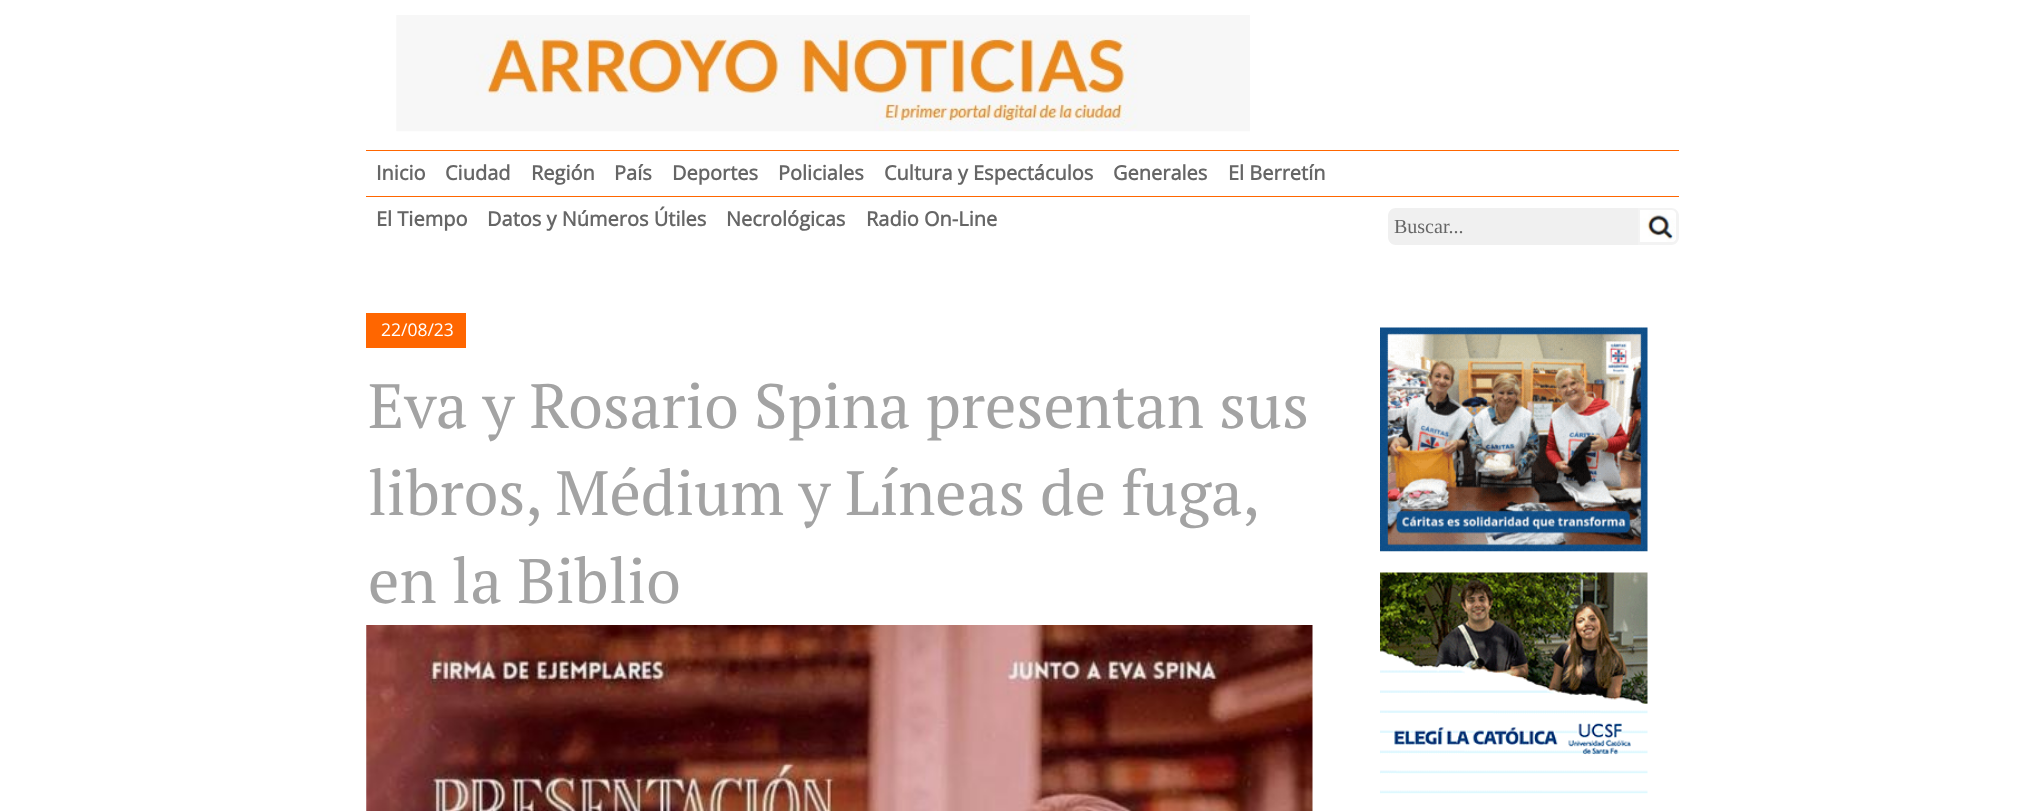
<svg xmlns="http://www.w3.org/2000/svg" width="2043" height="811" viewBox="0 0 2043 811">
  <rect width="100%" height="100%" fill="#fff"/>
  <image x="396" y="15" width="854" height="117" href="img/1.png"/>
  <path d="M366 150h1313v1H366z" fill="#f60"/>
  <path d="M366 196h1313v1H366z" fill="#f60"/>
  <path d="M1396 208H1638V245H1396C1391.5 245 1388 241.5 1388 237V216C1388 211.5 1391.5 208 1396 208Z" fill="#f0f0f0"/>
  <path d="M1638 208H1671C1675.5 208 1679 211.5 1679 216V237C1679 241.5 1675.5 245 1671 245H1638Z" fill="#f3f3f3"/>
  <image x="1640" y="210" width="36" height="32" href="img/2.png"/>
  <path d="M366 313h100v35H366z" fill="#f60"/>
  <image x="366" y="625" width="947" height="186" href="img/3.png"/>
  <image x="1380" y="327" width="268" height="225" href="img/4.png"/>
  <image x="1380" y="572" width="268" height="222" href="img/5.png"/>
  <g font-family="Open Sans" font-size="20" font-weight="bold" fill="#666">
    <text x="376" y="180">Inicio</text>
    <text x="445" y="180">Ciudad</text>
    <text x="531" y="180">Región</text>
    <text x="614" y="180">País</text>
    <text x="672" y="180">Deportes</text>
    <text x="778" y="180">Policiales</text>
    <text x="884" y="180">Cultura y Espectáculos</text>
    <text x="1113" y="180">Generales</text>
    <text x="1228" y="180">El Berretín</text>
    <text x="376" y="226">El Tiempo</text>
    <text x="487" y="226">Datos y Números Útiles</text>
    <text x="726" y="226">Necrológicas</text>
    <text x="866" y="226">Radio On-Line</text>
  </g>
  <text x="1394" y="233" font-family="Liberation Serif" font-size="20" fill="#666">Buscar...</text>
  <text x="381" y="336" font-family="Open Sans" font-size="17.5" fill="#fff">22/08/23</text>
  <g font-family="PT Serif" font-size="62.5" fill="#a3a3a3">
    <text x="368" y="428">Eva y Rosario Spina presentan sus</text>
    <text x="368" y="515" word-spacing="-0.5">libros, Médium y Líneas de fuga,</text>
    <text x="368" y="603">en la Biblio</text>
  </g>
</svg>
